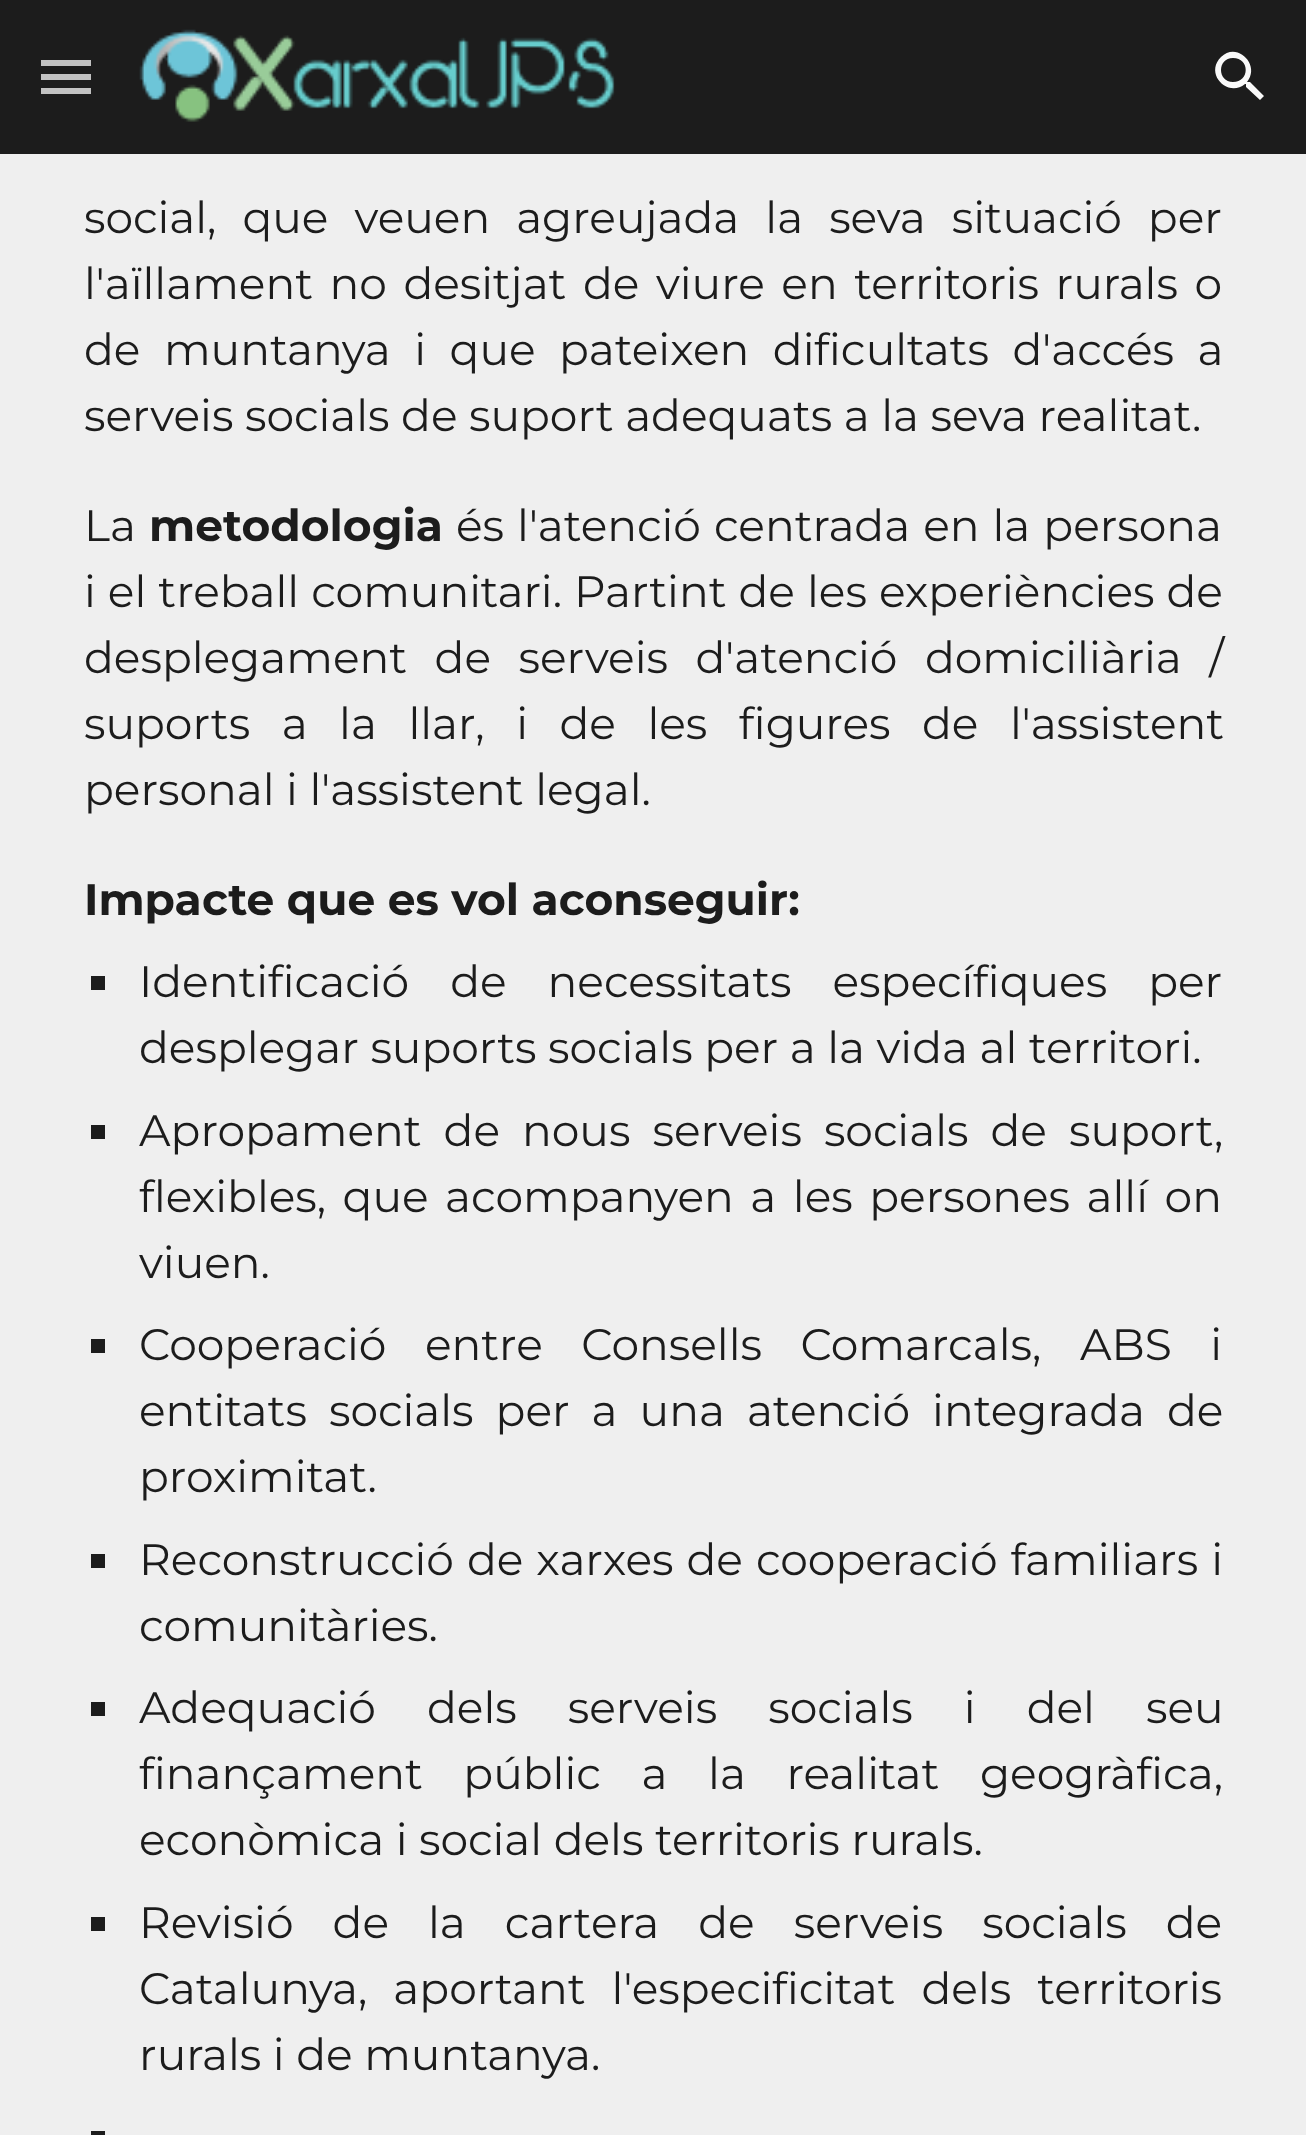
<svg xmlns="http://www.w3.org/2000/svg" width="1306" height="2135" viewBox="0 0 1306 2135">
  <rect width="100%" height="100%" fill="#efefef"/>
  <path d="M0 0h1306v154H0z" fill="#1c1c1c"/>
  <image x="139" y="29" width="476" height="93" href="img/1.png"/>
  <path d="M1250 82H1248H1247C1261 65 1237 41 1221 57C1204 74 1228 98 1245 84H1246V87L1260 100L1264 96ZM1233 82C1217 82 1217 58 1233 58C1250 58 1250 82 1233 82Z" fill="#f9f9f9"/>
  <path d="M41 60h50v6H41z" fill="#c2c2c2"/>
  <path d="M41 74h50v6H41z" fill="#c2c2c2"/>
  <path d="M41 88h50v6H41z" fill="#c2c2c2"/>
  <path d="M91 976h14v14H91z" fill="#1c1c1c"/>
  <path d="M91 1125h14v14H91z" fill="#1c1c1c"/>
  <path d="M91 1339h14v14H91z" fill="#1c1c1c"/>
  <path d="M91 1554h14v14H91z" fill="#1c1c1c"/>
  <path d="M91 1702h14v14H91z" fill="#1c1c1c"/>
  <path d="M91 1917h14v14H91z" fill="#1c1c1c"/>
  <path d="M91 2131h14v4H91z" fill="#1c1c1c"/>
  <g font-family="Montserrat" font-size="44" fill="#1c1c1c">
    <text x="84" y="233" word-spacing="14.5">social, que veuen agreujada la seva situació per</text>
    <text x="84" y="299" word-spacing="5">l'aïllament no desitjat de viure en territoris rurals o</text>
    <text x="84" y="365" word-spacing="12">de muntanya i que pateixen dificultats d'accés a</text>
    <text x="84" y="431">serveis socials de suport adequats a la seva realitat.</text>
    <text x="84" y="541">La</text>
  </g>
  <text x="149" y="541" font-family="Montserrat" font-size="44" font-weight="bold" fill="#1c1c1c">metodologia</text>
  <g font-family="Montserrat" font-size="44" fill="#1c1c1c">
    <text x="456" y="541" word-spacing="1.5">és l'atenció centrada en la persona</text>
    <text x="84" y="607" word-spacing="0.5">i el treball comunitari. Partint de les experiències de</text>
    <text x="84" y="673" word-spacing="16">desplegament de serveis d'atenció domiciliària /</text>
    <text x="84" y="739" word-spacing="20">suports a la llar, i de les figures de l'assistent</text>
    <text x="84" y="805">personal i l'assistent legal.</text>
  </g>
  <text x="84" y="915" font-family="Montserrat" font-size="44" font-weight="bold" fill="#1c1c1c">Impacte que es vol aconseguir:</text>
  <g font-family="Montserrat" font-size="44" fill="#1c1c1c">
    <text x="139" y="997" word-spacing="29.5">Identificació de necessitats específiques per</text>
    <text x="139" y="1063">desplegar suports socials per a la vida al territori.</text>
    <text x="139" y="1146" word-spacing="10.5">Apropament de nous serveis socials de suport,</text>
    <text x="139" y="1212" word-spacing="5">flexibles, que acompanyen a les persones allí on</text>
    <text x="139" y="1278">viuen.</text>
    <text x="139" y="1360" word-spacing="27">Cooperació entre Consells Comarcals, ABS i</text>
    <text x="139" y="1426" word-spacing="10.5">entitats socials per a una atenció integrada de</text>
    <text x="139" y="1492">proximitat.</text>
    <text x="139" y="1575" word-spacing="1.5">Reconstrucció de xarxes de cooperació familiars i</text>
    <text x="139" y="1641">comunitàries.</text>
    <text x="139" y="1723" word-spacing="39.5">Adequació dels serveis socials i del seu</text>
    <text x="139" y="1789" word-spacing="29">finançament públic a la realitat geogràfica,</text>
    <text x="139" y="1855">econòmica i social dels territoris rurals.</text>
    <text x="139" y="1938" word-spacing="27.5">Revisió de la cartera de serveis socials de</text>
    <text x="139" y="2004" word-spacing="14.5">Catalunya, aportant l'especificitat dels territoris</text>
    <text x="139" y="2070">rurals i de muntanya.</text>
  </g>
</svg>
